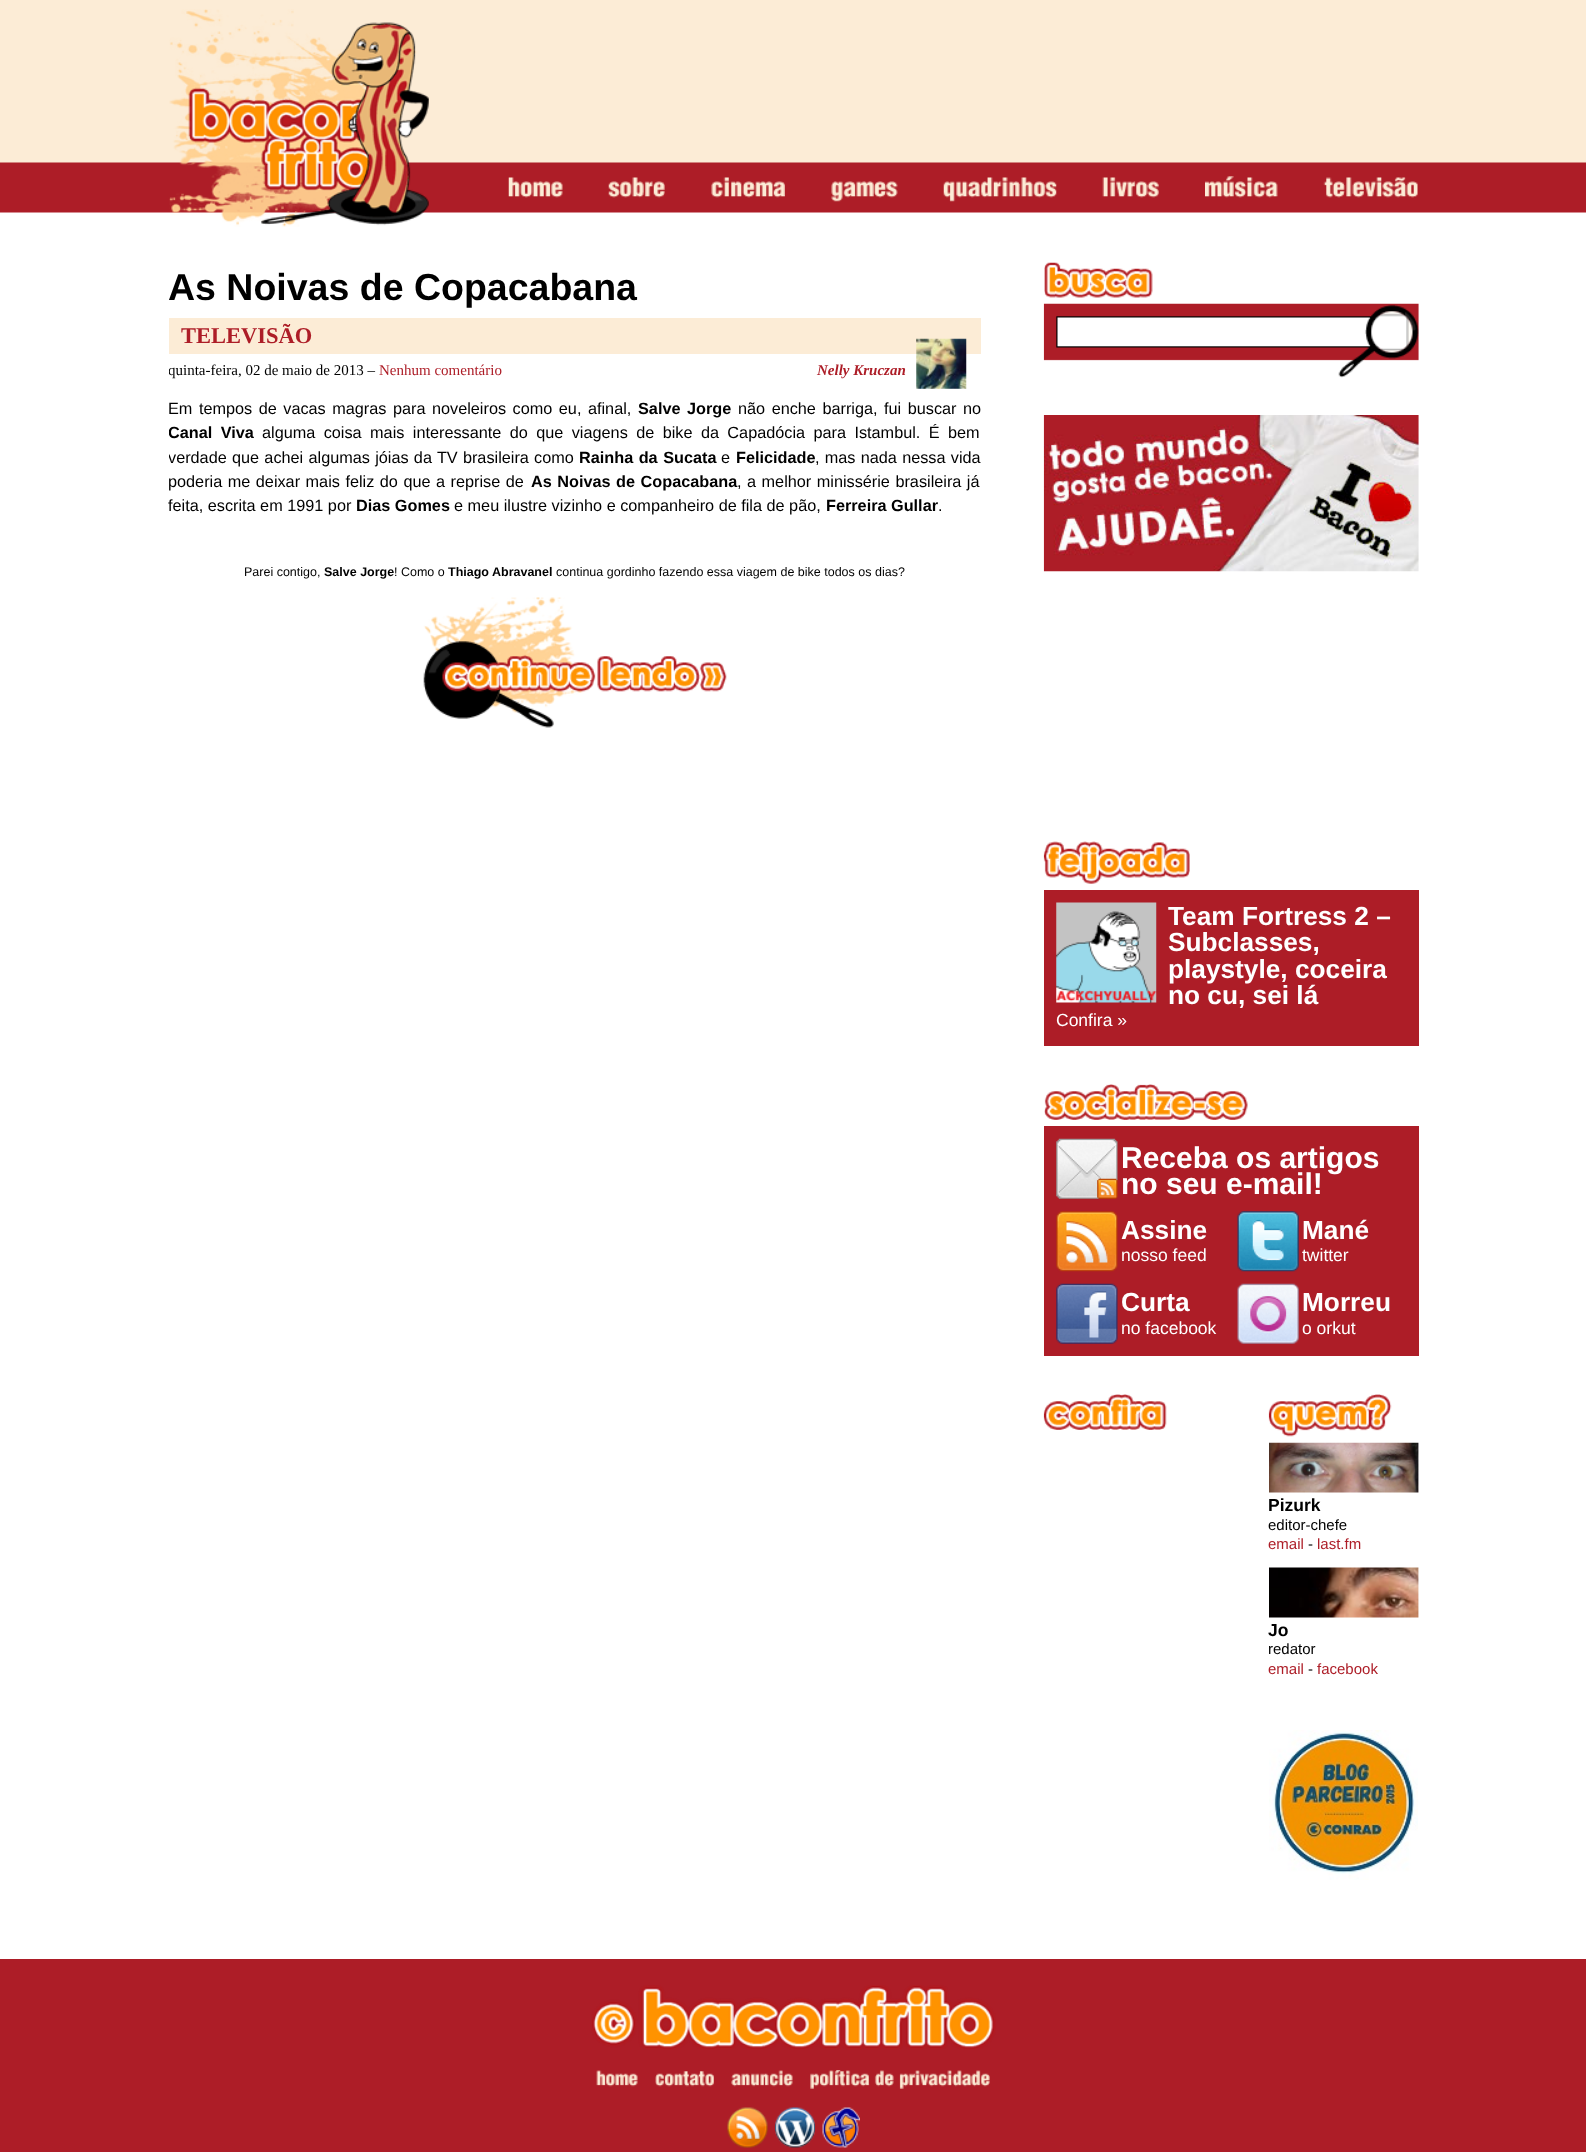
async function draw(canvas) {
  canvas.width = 1586;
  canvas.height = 2152;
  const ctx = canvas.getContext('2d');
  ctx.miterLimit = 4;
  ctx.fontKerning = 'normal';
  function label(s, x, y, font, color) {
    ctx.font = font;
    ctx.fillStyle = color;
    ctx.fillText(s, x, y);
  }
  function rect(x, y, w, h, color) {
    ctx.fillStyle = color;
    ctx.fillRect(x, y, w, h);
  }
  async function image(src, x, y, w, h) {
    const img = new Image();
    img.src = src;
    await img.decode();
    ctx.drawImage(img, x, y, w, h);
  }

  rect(0, 0, 1586, 2152, '#fff');
  await image('assets/img1.png', 0, 0, 1586, 213);
  await image('assets/img2.png', 169, 9, 260, 218);
  await image('assets/img3.png', 508, 177, 55, 21);
  await image('assets/img4.png', 608, 177, 57, 21);
  await image('assets/img5.png', 711, 177, 74, 21);
  await image('assets/img6.png', 831, 181, 67, 21);
  await image('assets/img7.png', 943, 177, 114, 25);
  await image('assets/img8.png', 1102, 177, 57, 21);
  await image('assets/img9.png', 1205, 176, 73, 22);
  await image('assets/img10.png', 1323, 177, 95, 21);
  label('As Noivas de Copacabana', 168, 300, 'bold 37.5px Liberation Sans', '#000');
  rect(169, 318, 812, 36, '#fcecd6');
  label('TELEVISÃO', 181, 343, 'bold 22.5px Liberation Serif', '#ad1d27');
  ctx.save();
  ctx.beginPath();
  ctx.rect(169, 263, 812, 483);
  ctx.clip();
  label('quinta-feira, 02 de maio de 2013 –', 168, 375, '15px Liberation Serif', '#000');
  ctx.restore();
  label('Nenhum comentário', 379, 375, '15px Liberation Serif', '#ad1d27');
  label('Nelly Kruczan', 817, 375, 'italic bold 15px Liberation Serif', '#ad1d27');
  await image('assets/img11.png', 916, 338, 51, 51);
  ctx.wordSpacing = '2px';
  label('Em tempos de vacas magras para noveleiros como eu, afinal,', 168, 414, '16.25px Liberation Sans', '#000');
  label('Salve Jorge', 638, 414, 'bold 16.25px Liberation Sans', '#000');
  label('não enche barriga, fui buscar no', 738, 414, '16.25px Liberation Sans', '#000');
  ctx.save();
  ctx.beginPath();
  ctx.rect(169, 263, 812, 483);
  ctx.clip();
  ctx.wordSpacing = '3.9px';
  label('Canal Viva', 168, 438, 'bold 16.25px Liberation Sans', '#000');
  ctx.restore();
  ctx.wordSpacing = '3.9px';
  label('alguma coisa mais interessante do que viagens de bike da Capadócia para Istambul. É bem', 262, 438, '16.25px Liberation Sans', '#000');
  ctx.save();
  ctx.beginPath();
  ctx.rect(169, 263, 812, 483);
  ctx.clip();
  ctx.wordSpacing = '0.75px';
  label('verdade que achei algumas jóias da TV brasileira como', 168, 463, '16.25px Liberation Sans', '#000');
  ctx.restore();
  ctx.wordSpacing = '1px';
  label('Rainha da Sucata', 579, 463, 'bold 16.25px Liberation Sans', '#000');
  ctx.wordSpacing = '0px';
  label('e', 721, 463, '16.25px Liberation Sans', '#000');
  label('Felicidade', 736, 463, 'bold 16.25px Liberation Sans', '#000');
  ctx.wordSpacing = '0.75px';
  label(', mas nada nessa vida', 815, 463, '16.25px Liberation Sans', '#000');
  ctx.wordSpacing = '1px';
  label('poderia me deixar mais feliz do que a reprise de', 168, 487, '16.25px Liberation Sans', '#000');
  label('As Noivas de Copacabana', 531, 487, 'bold 16.25px Liberation Sans', '#000');
  label(', a melhor minissérie brasileira já', 737, 487, '16.25px Liberation Sans', '#000');
  ctx.wordSpacing = '0px';
  label('feita, escrita em 1991 por', 168, 511, '16.25px Liberation Sans', '#000');
  label('Dias Gomes', 356, 511, 'bold 16.25px Liberation Sans', '#000');
  label('e meu ilustre vizinho e companheiro de fila de pão,', 454, 511, '16.25px Liberation Sans', '#000');
  label('Ferreira Gullar', 826, 511, 'bold 16.25px Liberation Sans', '#000');
  label('.', 938, 511, '16.25px Liberation Sans', '#000');
  label('Parei contigo,', 244, 576, '12.5px Liberation Sans', '#000');
  label('Salve Jorge', 324, 576, 'bold 12.5px Liberation Sans', '#000');
  label('! Como o', 394, 576, '12.5px Liberation Sans', '#000');
  label('Thiago Abravanel', 448, 576, 'bold 12.5px Liberation Sans', '#000');
  label('continua gordinho fazendo essa viagem de bike todos os dias?', 556, 576, '12.5px Liberation Sans', '#000');
  await image('assets/img12.png', 423, 597, 304, 131);
  await image('assets/img13.png', 1044, 262, 109, 36);
  await image('assets/img14.png', 1043, 303, 376, 75);
  await image('assets/img15.png', 1043, 415, 376, 157);
  await image('assets/img16.png', 1043, 841, 147, 43);
  rect(1044, 890, 375, 156, '#ad1d27');
  await image('assets/img17.png', 1056, 902, 101, 101);
  label('Team Fortress 2 –', 1168, 925, 'bold 26.25px Liberation Sans', '#fff');
  label('Subclasses,', 1168, 951, 'bold 26.25px Liberation Sans', '#fff');
  label('playstyle, coceira', 1168, 978, 'bold 26.25px Liberation Sans', '#fff');
  label('no cu, sei lá', 1168, 1004, 'bold 26.25px Liberation Sans', '#fff');
  label('Confira »', 1056, 1026, '17.5px Liberation Sans', '#fff');
  await image('assets/img18.png', 1044, 1084, 204, 36);
  rect(1044, 1126, 375, 230, '#ad1d27');
  await image('assets/img19.png', 1056, 1138, 62, 61);
  label('Receba os artigos', 1121, 1168, 'bold 30px Liberation Sans', '#fff');
  label('no seu e-mail!', 1121, 1194, 'bold 30px Liberation Sans', '#fff');
  await image('assets/img20.png', 1056, 1211, 62, 61);
  label('Assine', 1121, 1239, 'bold 26.25px Liberation Sans', '#fff');
  label('nosso feed', 1121, 1261, '17.5px Liberation Sans', '#fff');
  await image('assets/img21.png', 1237, 1211, 62, 61);
  label('Mané', 1302, 1239, 'bold 26.25px Liberation Sans', '#fff');
  label('twitter', 1302, 1261, '17.5px Liberation Sans', '#fff');
  await image('assets/img22.png', 1056, 1283, 62, 61);
  label('Curta', 1121, 1311, 'bold 26.25px Liberation Sans', '#fff');
  label('no facebook', 1121, 1334, '17.5px Liberation Sans', '#fff');
  await image('assets/img23.png', 1237, 1283, 62, 61);
  label('Morreu', 1302, 1311, 'bold 26.25px Liberation Sans', '#fff');
  label('o orkut', 1302, 1334, '17.5px Liberation Sans', '#fff');
  await image('assets/img24.png', 1043, 1394, 124, 36);
  await image('assets/img25.png', 1268, 1394, 124, 43);
  await image('assets/img26.png', 1269, 1442, 150, 51);
  label('Pizurk', 1268, 1511, 'bold 17.5px Liberation Sans', '#000');
  label('editor-chefe', 1268, 1530, '15px Liberation Sans', '#000');
  label('email', 1268, 1549, '15px Liberation Sans', '#ad1d27');
  label('-', 1308, 1549, '15px Liberation Sans', '#000');
  label('last.fm', 1317, 1549, '15px Liberation Sans', '#ad1d27');
  await image('assets/img27.png', 1269, 1567, 150, 51);
  label('Jo', 1268, 1636, 'bold 17.5px Liberation Sans', '#000');
  label('redator', 1268, 1654, '15px Liberation Sans', '#000');
  label('email', 1268, 1674, '15px Liberation Sans', '#ad1d27');
  label('-', 1308, 1674, '15px Liberation Sans', '#000');
  label('facebook', 1317, 1674, '15px Liberation Sans', '#ad1d27');
  await image('assets/img28.png', 1269, 1730, 149, 150);
  rect(0, 1959, 1586, 193, '#ad1d27');
  await image('assets/img29.png', 591, 1985, 405, 65);
  await image('assets/img30.png', 596, 2070, 42, 17);
  await image('assets/img31.png', 655, 2071, 59, 16);
  await image('assets/img32.png', 731, 2070, 62, 17);
  await image('assets/img33.png', 810, 2070, 180, 19);
  await image('assets/img34.png', 727, 2107, 41, 41);
  await image('assets/img35.png', 775, 2107, 40, 41);
  await image('assets/img36.png', 822, 2107, 38, 41);
}

draw(document.querySelector('canvas'));
